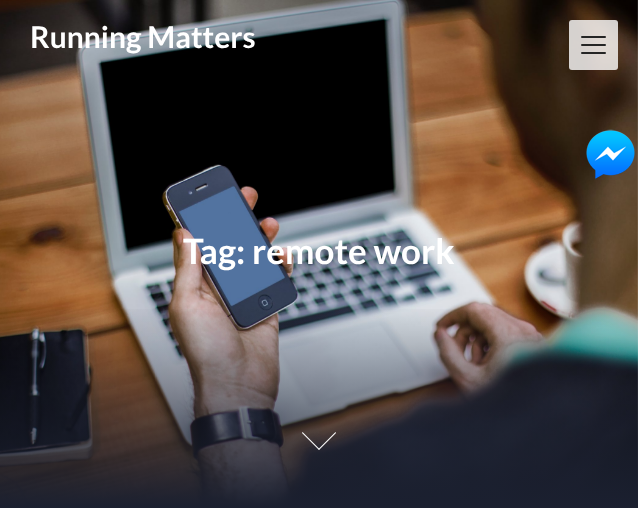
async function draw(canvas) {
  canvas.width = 638;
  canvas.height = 508;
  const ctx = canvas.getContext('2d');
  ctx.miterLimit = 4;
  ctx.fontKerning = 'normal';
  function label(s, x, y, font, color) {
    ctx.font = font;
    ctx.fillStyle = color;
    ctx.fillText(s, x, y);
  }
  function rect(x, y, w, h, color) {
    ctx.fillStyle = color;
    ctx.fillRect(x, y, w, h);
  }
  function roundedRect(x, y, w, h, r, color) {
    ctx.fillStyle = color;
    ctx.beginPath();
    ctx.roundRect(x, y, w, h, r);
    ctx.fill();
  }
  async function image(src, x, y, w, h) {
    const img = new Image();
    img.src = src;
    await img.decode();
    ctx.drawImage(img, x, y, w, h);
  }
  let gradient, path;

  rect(0, 0, 638, 508, '#fff');
  await image('assets/img1.png', 0, 0, 638, 507);
  label('Running Matters', 30, 48, 'bold 30px Lato', '#fff');
  roundedRect(569, 20, 49, 50, 3, '#ffffffcc');
  roundedRect(581, 44, 25, 2, 1, '#252525');
  roundedRect(581, 36, 25, 2, 1, '#252525');
  roundedRect(581, 52, 25, 2, 1, '#252525');
  label('Tag: remote work', 183, 264, 'bold 35px Lato', '#fff');
  gradient = ctx.createLinearGradient(319, 305, 319, 508);
  gradient.addColorStop(0, '#1b203000');
  gradient.addColorStop(1, '#1b2030');
  ctx.fillStyle = gradient;
  ctx.fillRect(0, 309, 638, 199);
  ctx.fillStyle = '#fff';
  path = new Path2D('M318.5 449L335.5 432L336 433L319 450Z');
  ctx.fill(path);
  path = new Path2D('M302 433L302.5 432L319.5 449L319 450Z');
  ctx.fill(path);
  await image('assets/img2.png', 586, 129, 49, 51);
}

draw(document.querySelector('canvas'));
